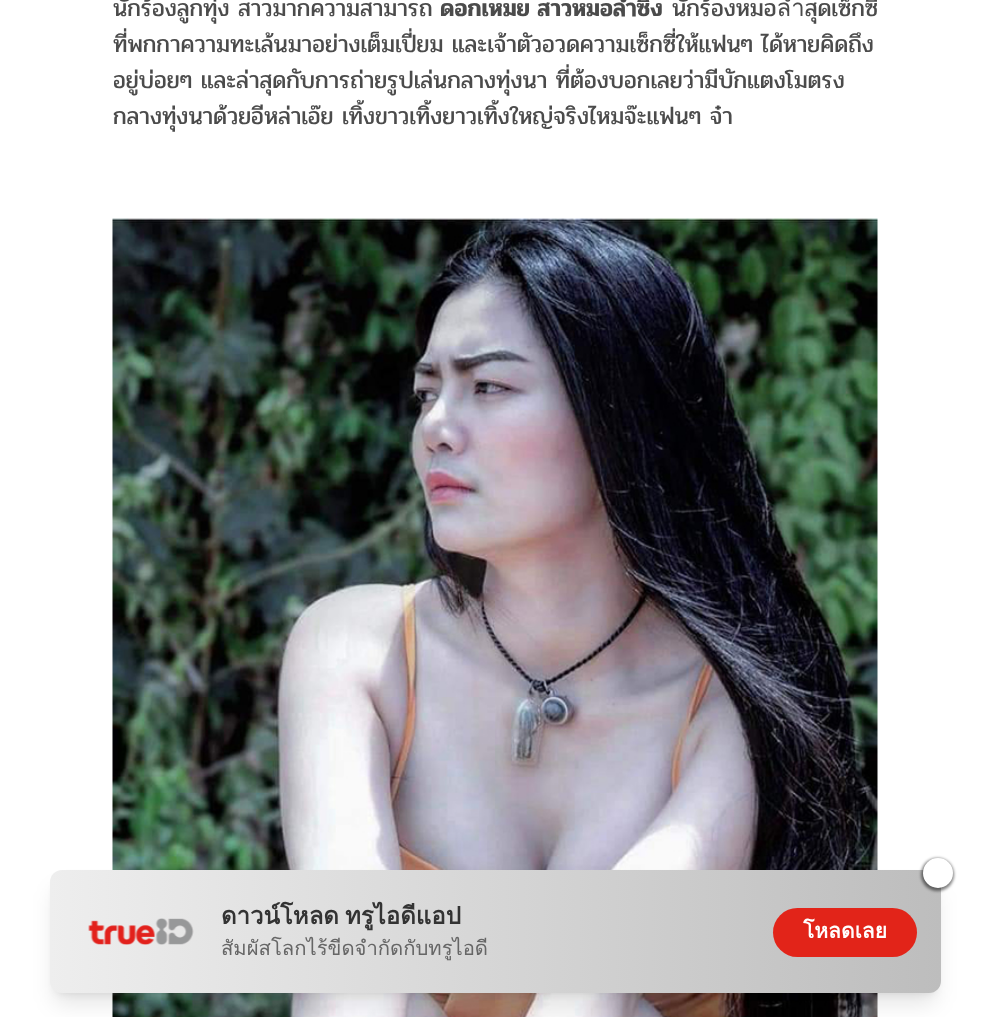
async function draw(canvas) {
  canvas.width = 989;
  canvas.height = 1017;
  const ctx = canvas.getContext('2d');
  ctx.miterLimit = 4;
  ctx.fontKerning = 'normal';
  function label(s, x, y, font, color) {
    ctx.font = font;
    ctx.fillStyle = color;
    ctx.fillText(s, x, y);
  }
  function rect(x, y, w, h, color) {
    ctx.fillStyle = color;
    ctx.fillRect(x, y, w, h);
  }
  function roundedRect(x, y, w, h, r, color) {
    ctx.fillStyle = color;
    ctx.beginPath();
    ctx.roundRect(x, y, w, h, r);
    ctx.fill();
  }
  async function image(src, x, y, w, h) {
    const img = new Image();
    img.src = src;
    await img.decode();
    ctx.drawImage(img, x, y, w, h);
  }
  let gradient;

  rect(0, 0, 989, 1017, '#fff');
  label('นักร้องลูกทุ่ง สาวมากความสามารถ', 113, 16, '24px Pridi', '#4b4b4b');
  label('ดอกเหมย สาวหมอลำซิ่ง', 440, 16, '600 24px Pridi', '#4b4b4b');
  label('นักร้องหมอลำสุดเซ็กซี่', 672, 16, '24px Pridi', '#4b4b4b');
  label('ที่พกกาความทะเล้นมาอย่างเต็มเปี่ยม และเจ้าตัวอวดความเซ็กซี่ให้แฟนๆ ได้หายคิดถึง', 113, 52, '24px Pridi', '#4b4b4b');
  label('อยู่บ่อยๆ และล่าสุดกับการถ่ายรูปเล่นกลางทุ่งนา ที่ต้องบอกเลยว่ามีบักแตงโมตรง', 113, 88, '24px Pridi', '#4b4b4b');
  label('กลางทุ่งนาด้วยอีหล่าเอ๊ย เทิ้งขาวเทิ้งยาวเทิ้งใหญ่จริงไหมจ๊ะแฟนๆ จ๋า', 113, 124, '24px Pridi', '#4b4b4b');
  await image('assets/img1.png', 112, 218, 766, 799);
  ctx.fillStyle = '#0000001a';
  ctx.filter = 'blur(4.5px)';
  ctx.beginPath();
  ctx.roundRect(56, 882, 879, 111, 6);
  ctx.fill();
  ctx.filter = 'none';
  ctx.filter = 'blur(11px)';
  ctx.beginPath();
  ctx.roundRect(54, 890, 882, 114, 8);
  ctx.fill();
  ctx.filter = 'none';
  gradient = ctx.createLinearGradient(50, 932, 941, 932);
  gradient.addColorStop(0, '#eee');
  gradient.addColorStop(1, '#bdbdbd');
  ctx.fillStyle = gradient;
  ctx.beginPath();
  ctx.roundRect(50, 870, 891, 123, 12);
  ctx.fill();
  ctx.fillStyle = '#00000080';
  ctx.filter = 'blur(1.5px)';
  ctx.beginPath();
  ctx.roundRect(921, 858, 33, 33, 16.5);
  ctx.fill();
  ctx.filter = 'none';
  ctx.fillStyle = '#fff';
  ctx.beginPath();
  ctx.arc(938, 873, 15, 0, 2 * Math.PI);
  ctx.fill();
  await image('assets/img2.png', 88, 918, 106, 27);
  ctx.wordSpacing = '-2px';
  label('ดาวน์โหลด ทรูไอดีแอป', 221, 924, 'bold 24px Loma', '#333');
  ctx.wordSpacing = '0px';
  label('สัมผัสโลกไร้ขีดจำกัดกับทรูไอดี', 221, 955, '20.25px Loma', '#666');
  roundedRect(773, 908, 144, 49, 24.5, '#e22419');
  label('โหลดเลย', 803, 938, 'bold 21px Loma', '#fff');
}

draw(document.querySelector('canvas'));
